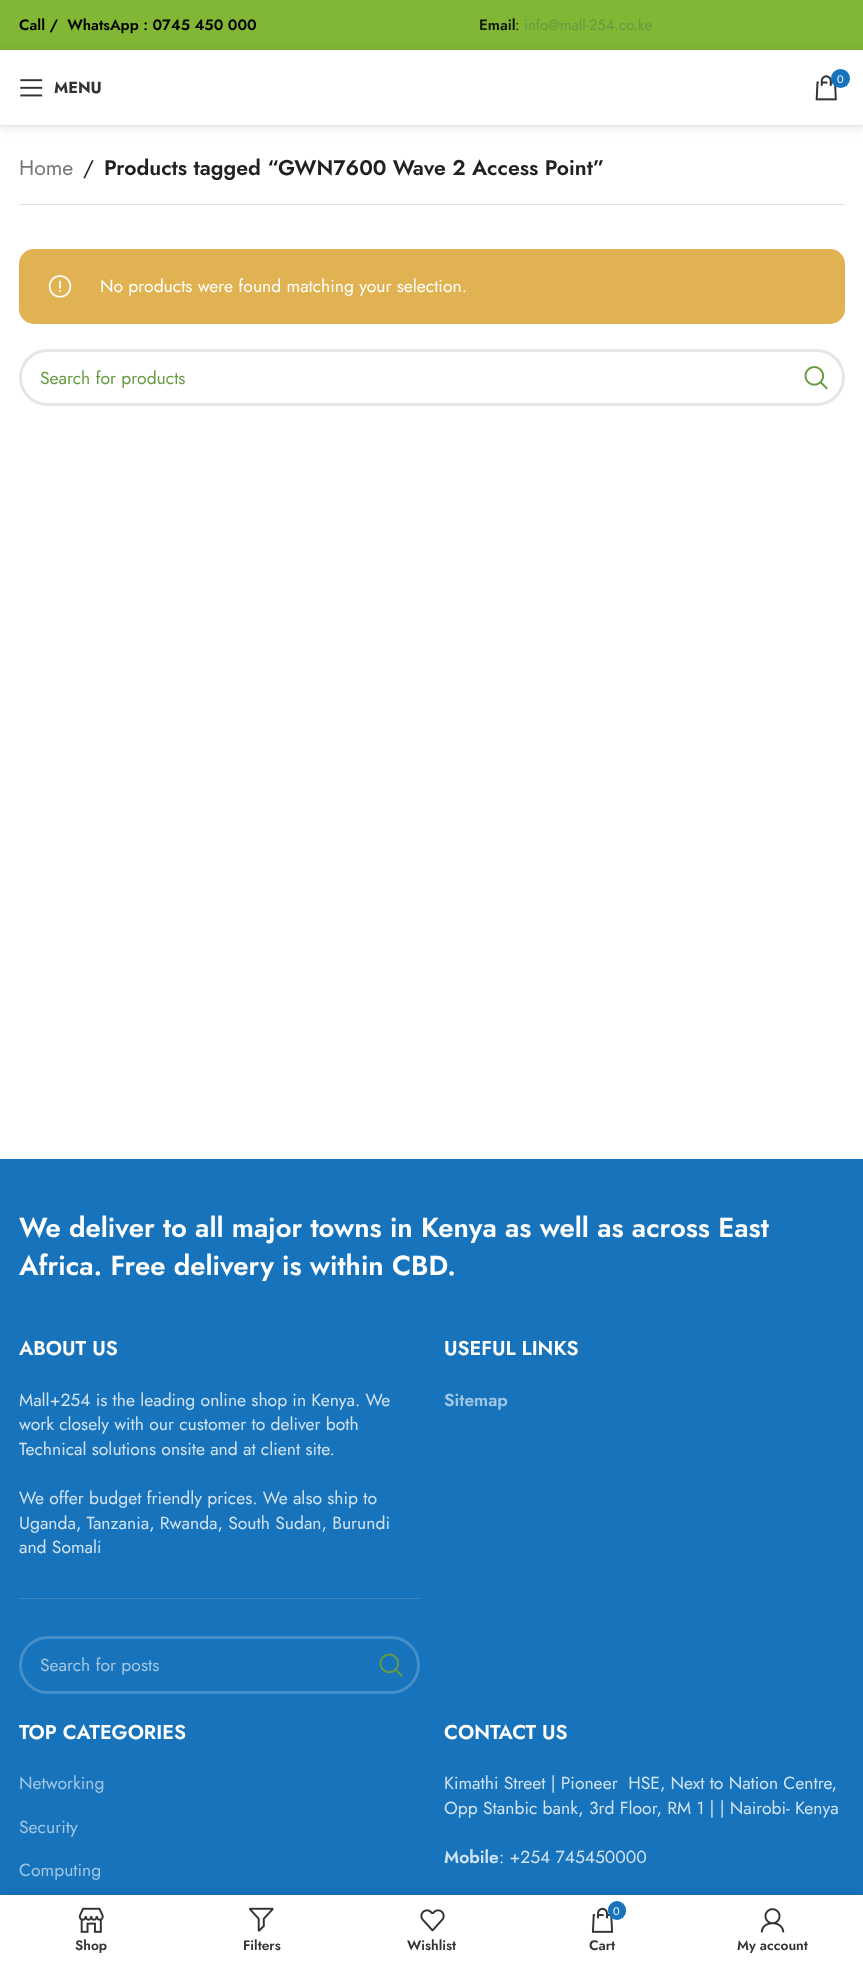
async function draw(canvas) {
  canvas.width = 863;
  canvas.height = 1963;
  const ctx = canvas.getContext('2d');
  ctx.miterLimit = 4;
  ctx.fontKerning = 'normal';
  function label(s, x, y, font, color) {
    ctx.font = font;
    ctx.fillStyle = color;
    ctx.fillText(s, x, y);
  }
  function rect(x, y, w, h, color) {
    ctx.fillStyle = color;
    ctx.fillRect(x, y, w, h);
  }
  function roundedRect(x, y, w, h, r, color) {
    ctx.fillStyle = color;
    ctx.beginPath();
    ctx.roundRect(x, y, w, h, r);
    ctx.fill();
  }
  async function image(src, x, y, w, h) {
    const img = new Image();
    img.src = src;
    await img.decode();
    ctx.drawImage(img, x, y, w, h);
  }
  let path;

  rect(0, 0, 863, 1963, '#fff');
  rect(0, 0, 863, 50, '#82b735');
  label('Call /  WhatsApp : 0745 450 000', 19, 30, '600 15px Jost', '#000');
  label('Email', 479, 30, '600 15px Jost', '#111807');
  label(':', 515, 30, '15px Jost', '#111807');
  label('info@mall-254.co.ke', 524, 30, '15px Jost', '#669b41');
  ctx.save();
  path = new Path2D('M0 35H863V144H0ZM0 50H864V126H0Z');
  ctx.clip(path, 'evenodd');
  ctx.fillStyle = '#0000001a';
  ctx.filter = 'blur(5px)';
  ctx.beginPath();
  ctx.rect(0, 51, 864, 77);
  ctx.fill();
  ctx.filter = 'none';
  ctx.restore();
  rect(0, 125, 863, 1, '#e6e6e6');
  await image('assets/img1.png', 815, 75, 22, 26);
  ctx.fillStyle = '#1773bb';
  ctx.beginPath();
  ctx.arc(840.5, 78.5, 9.5, 0, 2 * Math.PI);
  ctx.fill();
  label('0', 837, 83, '11px Jost', '#fff');
  await image('assets/img2.png', 20, 79, 23, 18);
  label('MENU', 54, 93, 'bold 16px Jost', '#333');
  rect(19, 204, 826, 1, '#e4e4e4');
  label('Home', 19, 175, '21.25px Jost', '#767676');
  label('/', 83, 175, '21.25px Jost', '#212121');
  label('Products tagged “GWN7600 Wave 2 Access Point”', 104, 175, '600 21.25px Jost', '#212121');
  roundedRect(19, 249, 826, 75, 15, '#e0b252');
  await image('assets/img3.png', 48, 275, 24, 23);
  label('No products were found matching your selection.', 100, 292, '17.5px Jost', '#fff');
  ctx.beginPath();
  ctx.roundRect(20.5, 350.5, 823, 54, 27);
  ctx.strokeStyle = '#e6e6e6';
  ctx.lineWidth = 3;
  ctx.stroke();
  label('Search for products', 40, 384, '17.5px Jost', '#669b41');
  await image('assets/img4.png', 804, 366, 24, 24);
  rect(0, 1159, 863, 736, '#1773bb');
  label('We deliver to all major towns in Kenya as well as across East', 19, 1237, '600 27.5px Jost', '#fff');
  label('Africa. Free delivery is within CBD.', 19, 1275, '600 27.5px Jost', '#fff');
  rect(19, 1598, 401, 1, '#3a88c5');
  label('ABOUT US', 19, 1355, '600 20px Jost', '#fff');
  label('Mall+254 is the leading online shop in Kenya. We', 19, 1406, '17.5px Jost', '#d1e3f1');
  label('work closely with our customer to deliver both', 19, 1430, '17.5px Jost', '#d1e3f1');
  label('Technical solutions onsite and at client site.', 19, 1455, '17.5px Jost', '#d1e3f1');
  label('We offer budget friendly prices. We also ship to', 19, 1504, '17.5px Jost', '#d1e3f1');
  label('Uganda, Tanzania, Rwanda, South Sudan, Burundi', 19, 1529, '17.5px Jost', '#d1e3f1');
  label('and Somali', 19, 1553, '17.5px Jost', '#d1e3f1');
  ctx.beginPath();
  ctx.roundRect(20.5, 1637.5, 398, 55, 27.5);
  ctx.strokeStyle = '#458fc9';
  ctx.stroke();
  label('Search for posts', 40, 1671, '17.5px Jost', '#a2c7e4');
  await image('assets/img5.png', 379, 1653, 24, 24);
  label('USEFUL LINKS', 444, 1355, '600 20px Jost', '#fff');
  label('Sitemap', 444, 1406, '600 17.5px Jost', '#a2c7e4');
  label('TOP CATEGORIES', 19, 1739, '600 20px Jost', '#fff');
  label('Networking', 19, 1789, '17.5px Jost', '#a2c7e4');
  label('Security', 19, 1833, '17.5px Jost', '#a2c7e4');
  label('Computing', 19, 1876, '17.5px Jost', '#a2c7e4');
  label('CONTACT US', 444, 1739, '600 20px Jost', '#fff');
  label('Kimathi Street | Pioneer  HSE, Next to Nation Centre,', 444, 1789, '17.5px Jost', '#d1e3f1');
  label('Opp Stanbic bank, 3rd Floor, RM 1 | | Nairobi- Kenya', 444, 1814, '17.5px Jost', '#d1e3f1');
  label('Mobile', 444, 1863, '600 17.5px Jost', '#d1e3f1');
  label(': +254 745450000', 499, 1863, '17.5px Jost', '#d1e3f1');
  ctx.fillStyle = '#0000001f';
  ctx.filter = 'blur(5.5px)';
  ctx.beginPath();
  ctx.rect(0, 1895, 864, 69);
  ctx.fill();
  ctx.filter = 'none';
  rect(0, 1895, 863, 68, '#fff');
  await image('assets/img6.png', 78, 1907, 26, 26);
  label('Shop', 75, 1950, '600 13.75px Jost', '#333');
  await image('assets/img7.png', 248, 1907, 26, 25);
  label('Filters', 243, 1950, '600 13.75px Jost', '#333');
  await image('assets/img8.png', 420, 1909, 25, 23);
  label('Wishlist', 407, 1950, '600 13.75px Jost', '#333');
  await image('assets/img9.png', 591, 1907, 23, 26);
  roundedRect(608, 1901, 18, 19, 9, '#1773bb');
  label('0', 613, 1915, '11px Jost', '#fff');
  label('Cart', 589, 1950, '600 13.75px Jost', '#333');
  await image('assets/img10.png', 760, 1908, 25, 25);
  label('My account', 737, 1950, '600 13.75px Jost', '#333');
}

draw(document.querySelector('canvas'));
